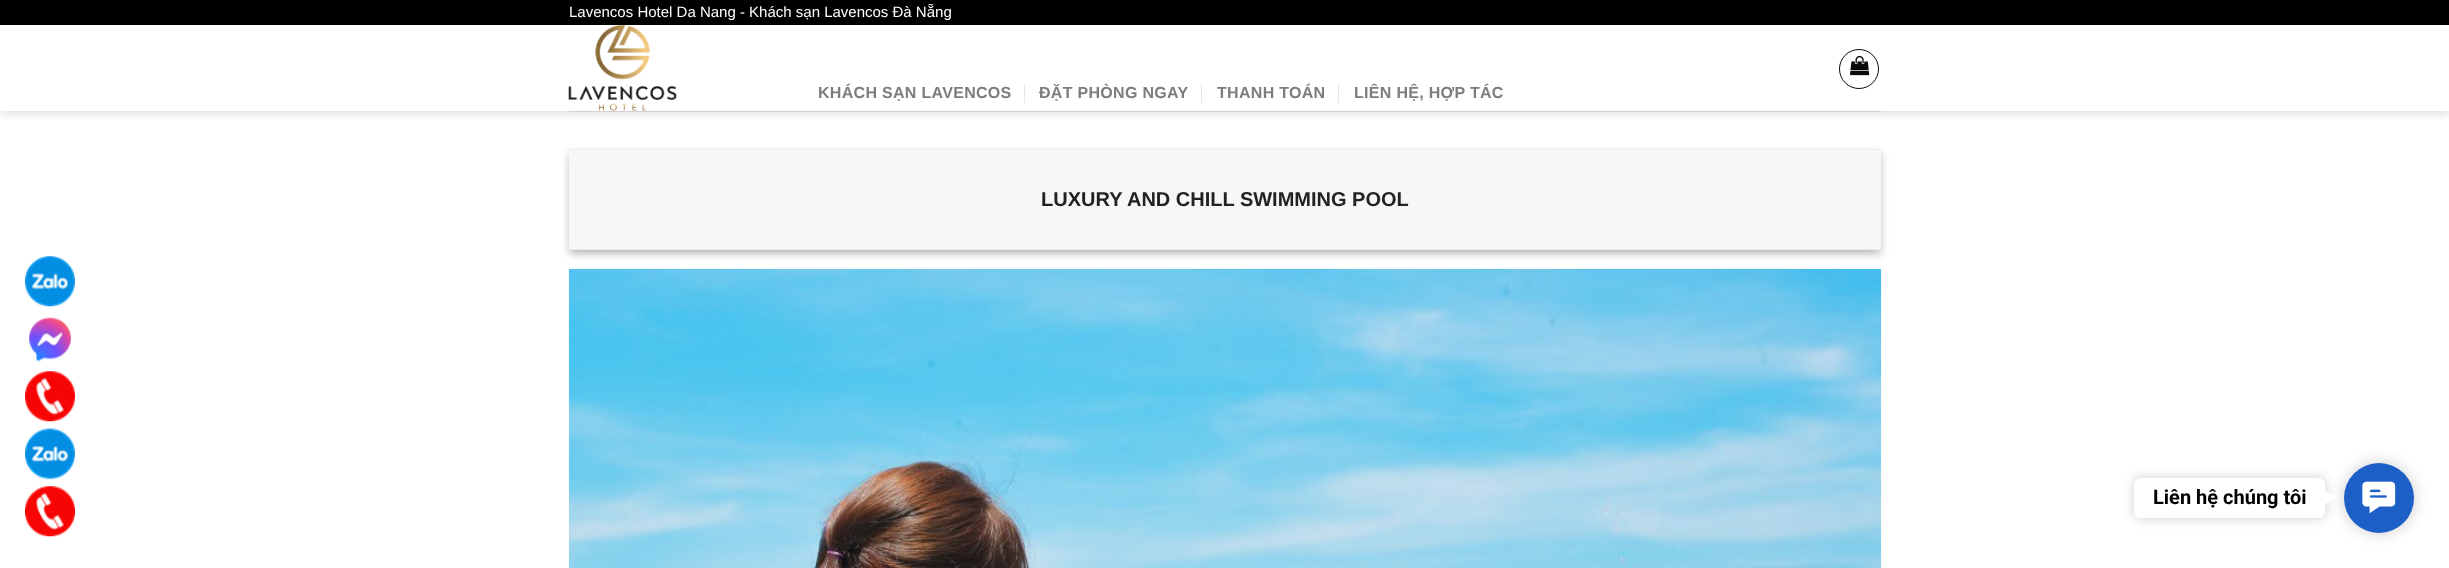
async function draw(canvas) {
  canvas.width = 2449;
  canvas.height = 568;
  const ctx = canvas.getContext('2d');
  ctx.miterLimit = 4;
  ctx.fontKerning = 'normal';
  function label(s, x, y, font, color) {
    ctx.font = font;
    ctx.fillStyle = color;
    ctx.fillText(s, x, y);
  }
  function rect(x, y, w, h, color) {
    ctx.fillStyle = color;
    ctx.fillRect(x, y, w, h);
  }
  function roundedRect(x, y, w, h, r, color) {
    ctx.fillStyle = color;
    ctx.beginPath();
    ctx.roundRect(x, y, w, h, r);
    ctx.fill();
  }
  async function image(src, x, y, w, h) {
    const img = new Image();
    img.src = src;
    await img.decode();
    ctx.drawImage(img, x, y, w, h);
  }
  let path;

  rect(0, 0, 2449, 568, '#fff');
  ctx.save();
  ctx.beginPath();
  ctx.rect(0, 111, 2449, 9);
  ctx.clip();
  ctx.fillStyle = '#00000026';
  ctx.filter = 'blur(6px)';
  ctx.beginPath();
  ctx.rect(1, 1, 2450, 112);
  ctx.fill();
  ctx.filter = 'none';
  ctx.restore();
  rect(0, 0, 2449, 25, '#000');
  label('Lavencos Hotel Da Nang - Khách sạn Lavencos Đà Nẵng', 569, 17, '15px Liberation Sans', '#fff');
  await image('assets/img1.png', 568, 25, 109, 87);
  ctx.beginPath();
  ctx.arc(1859, 69, 19.5, 0, 2 * Math.PI);
  ctx.strokeStyle = '#0a0a0a';
  ctx.stroke();
  await image('assets/img2.png', 1850, 55, 20, 21);
  ctx.letterSpacing = '0.3px';
  label('KHÁCH SẠN LAVENCOS', 818, 98, 'bold 16px Liberation Sans', '#7d7d7d');
  rect(1024, 84, 1, 19, '#e6e6e6');
  label('ĐẶT PHÒNG NGAY', 1039, 98, 'bold 16px Liberation Sans', '#7d7d7d');
  rect(1201, 84, 1, 19, '#e6e6e6');
  label('THANH TOÁN', 1217, 98, 'bold 16px Liberation Sans', '#7d7d7d');
  rect(1338, 84, 1, 19, '#e6e6e6');
  label('LIÊN HỆ, HỢP TÁC', 1354, 98, 'bold 16px Liberation Sans', '#7d7d7d');
  rect(569, 111, 1312, 1, '#0a09091a');
  ctx.fillStyle = '#0000003b';
  ctx.filter = 'blur(4px)';
  ctx.beginPath();
  ctx.rect(569, 153, 1312, 101);
  ctx.fill();
  ctx.filter = 'none';
  ctx.fillStyle = '#00000029';
  ctx.filter = 'blur(4px)';
  ctx.beginPath();
  ctx.rect(574, 158, 1302, 91);
  ctx.fill();
  ctx.filter = 'none';
  rect(569, 150, 1312, 99, '#f7f7f7');
  rect(569, 149, 1312, 1, '#ececec');
  rect(569, 249, 1312, 1, '#ececec');
  ctx.letterSpacing = '0px';
  label('LUXURY AND CHILL SWIMMING POOL', 1041, 206, 'bold 20px Liberation Sans', '#222');
  await image('assets/img3.png', 568, 268, 1314, 300);
  await image('assets/img4.png', 25, 256, 50, 51);
  await image('assets/img5.png', 29, 317, 42, 45);
  await image('assets/img6.png', 25, 371, 50, 51);
  await image('assets/img7.png', 25, 428, 50, 52);
  await image('assets/img8.png', 25, 486, 50, 51);
  ctx.fillStyle = '#00000033';
  ctx.filter = 'blur(6px)';
  ctx.beginPath();
  ctx.roundRect(2134, 478, 191, 40, 6);
  ctx.fill();
  ctx.filter = 'none';
  ctx.filter = 'blur(7.5px)';
  ctx.beginPath();
  ctx.roundRect(2344, 463, 70, 70, 35);
  ctx.fill();
  ctx.filter = 'none';
  roundedRect(2134, 478, 191, 40, 6, '#fff');
  label('Liên hệ chúng tôi', 2153, 504, 'bold 20px Roboto', '#000');
  ctx.fillStyle = '#fff';
  path = new Path2D('M2325 504V491L2339 497.5Z');
  ctx.fill(path);
  ctx.fillStyle = '#1c5fc6';
  ctx.beginPath();
  ctx.arc(2379, 498, 35, 0, 2 * Math.PI);
  ctx.fill();
  await image('assets/img9.png', 2362, 481, 34, 33);
}

draw(document.querySelector('canvas'));
